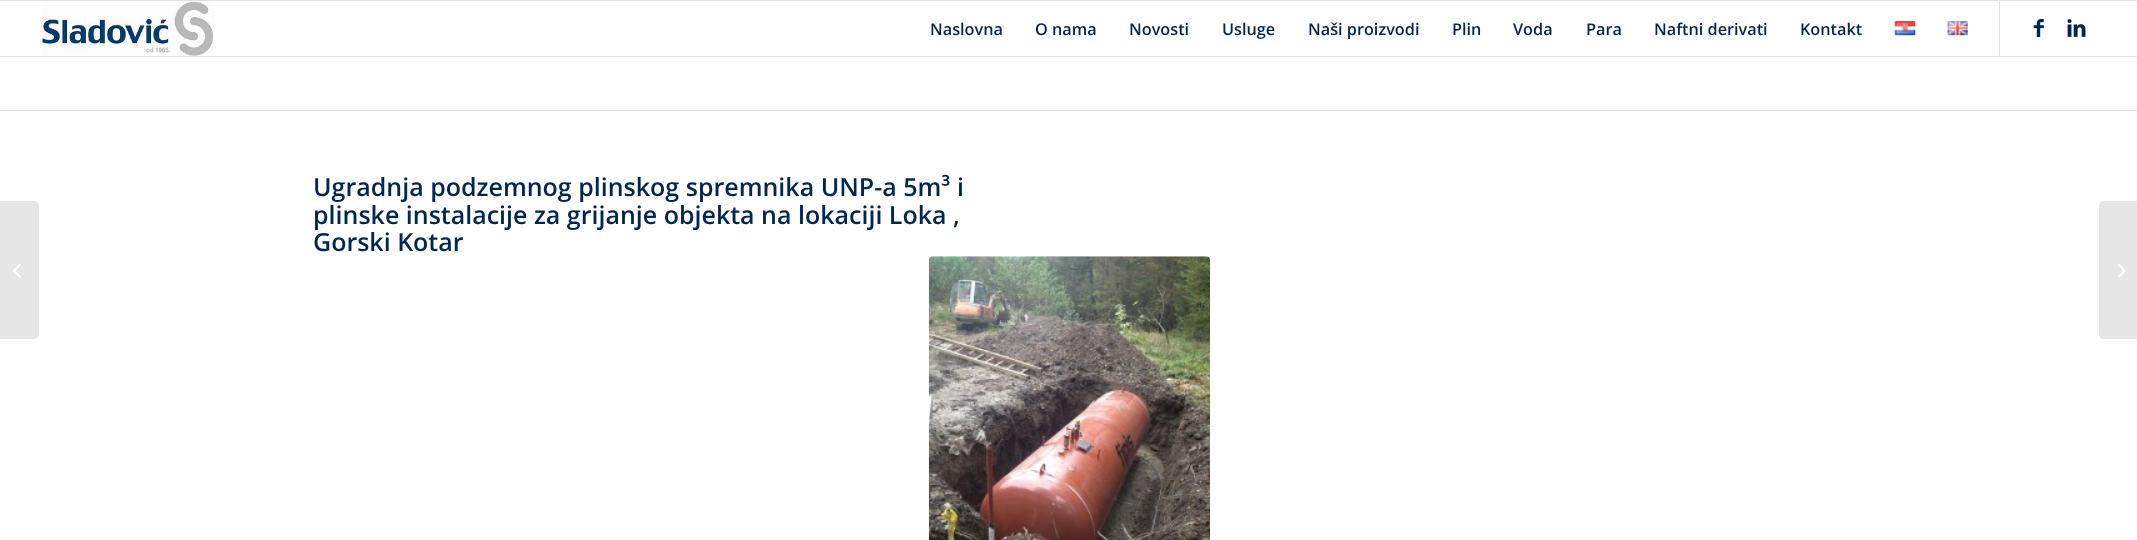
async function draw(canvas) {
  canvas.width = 2137;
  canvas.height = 540;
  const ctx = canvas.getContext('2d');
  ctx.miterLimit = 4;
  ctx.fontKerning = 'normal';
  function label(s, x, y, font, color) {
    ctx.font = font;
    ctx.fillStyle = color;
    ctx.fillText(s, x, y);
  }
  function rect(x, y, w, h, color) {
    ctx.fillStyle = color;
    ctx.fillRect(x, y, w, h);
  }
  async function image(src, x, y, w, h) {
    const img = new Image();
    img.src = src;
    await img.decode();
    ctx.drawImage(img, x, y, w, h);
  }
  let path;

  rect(0, 0, 2137, 540, '#fff');
  rect(0, 0, 2137, 1, '#e1e1e1');
  rect(0, 56, 2137, 1, '#e1e1e1');
  await image('assets/img1.png', 42, 1, 172, 55);
  rect(1999, 1, 1, 55, '#e1e1e1');
  label('Naslovna', 930, 35, '600 16.25px Open Sans', '#002754');
  label('O nama', 1035, 35, '600 16.25px Open Sans', '#002754');
  label('Novosti', 1129, 35, '600 16.25px Open Sans', '#002754');
  label('Usluge', 1222, 35, '600 16.25px Open Sans', '#002754');
  label('Naši proizvodi', 1308, 35, '600 16.25px Open Sans', '#002754');
  label('Plin', 1452, 35, '600 16.25px Open Sans', '#002754');
  label('Voda', 1513, 35, '600 16.25px Open Sans', '#002754');
  label('Para', 1586, 35, '600 16.25px Open Sans', '#002754');
  label('Naftni derivati', 1654, 35, '600 16.25px Open Sans', '#002754');
  label('Kontakt', 1800, 35, '600 16.25px Open Sans', '#002754');
  await image('assets/img2.png', 1894, 21, 22, 15);
  await image('assets/img3.png', 1946, 21, 22, 15);
  await image('assets/img4.png', 2033, 19, 11, 18);
  await image('assets/img5.png', 2067, 19, 19, 18);
  ctx.fillStyle = '#e6e6e6';
  ctx.beginPath();
  ctx.roundRect(0, 201, 39, 138, [0, 5, 5, 0]);
  ctx.fill();
  await image('assets/img6.png', 13, 264, 8, 14);
  rect(0, 110, 2137, 1, '#e1e1e1');
  label('Ugradnja podzemnog plinskog spremnika UNP-a 5m³ i', 313, 196, '600 25px Open Sans', '#002754');
  label('plinske instalacije za grijanje objekta na lokaciji Loka ,', 313, 224, '600 25px Open Sans', '#002754');
  label('Gorski Kotar', 313, 251, '600 25px Open Sans', '#002754');
  await image('assets/img7.png', 928, 256, 282, 284);
  ctx.fillStyle = '#e6e6e6';
  path = new Path2D('M2104 201H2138V339H2104C2101 339 2099 337 2099 334V206C2099 203 2101 201 2104 201Z');
  ctx.fill(path);
  await image('assets/img8.png', 2118, 264, 8, 14);
}

draw(document.querySelector('canvas'));
